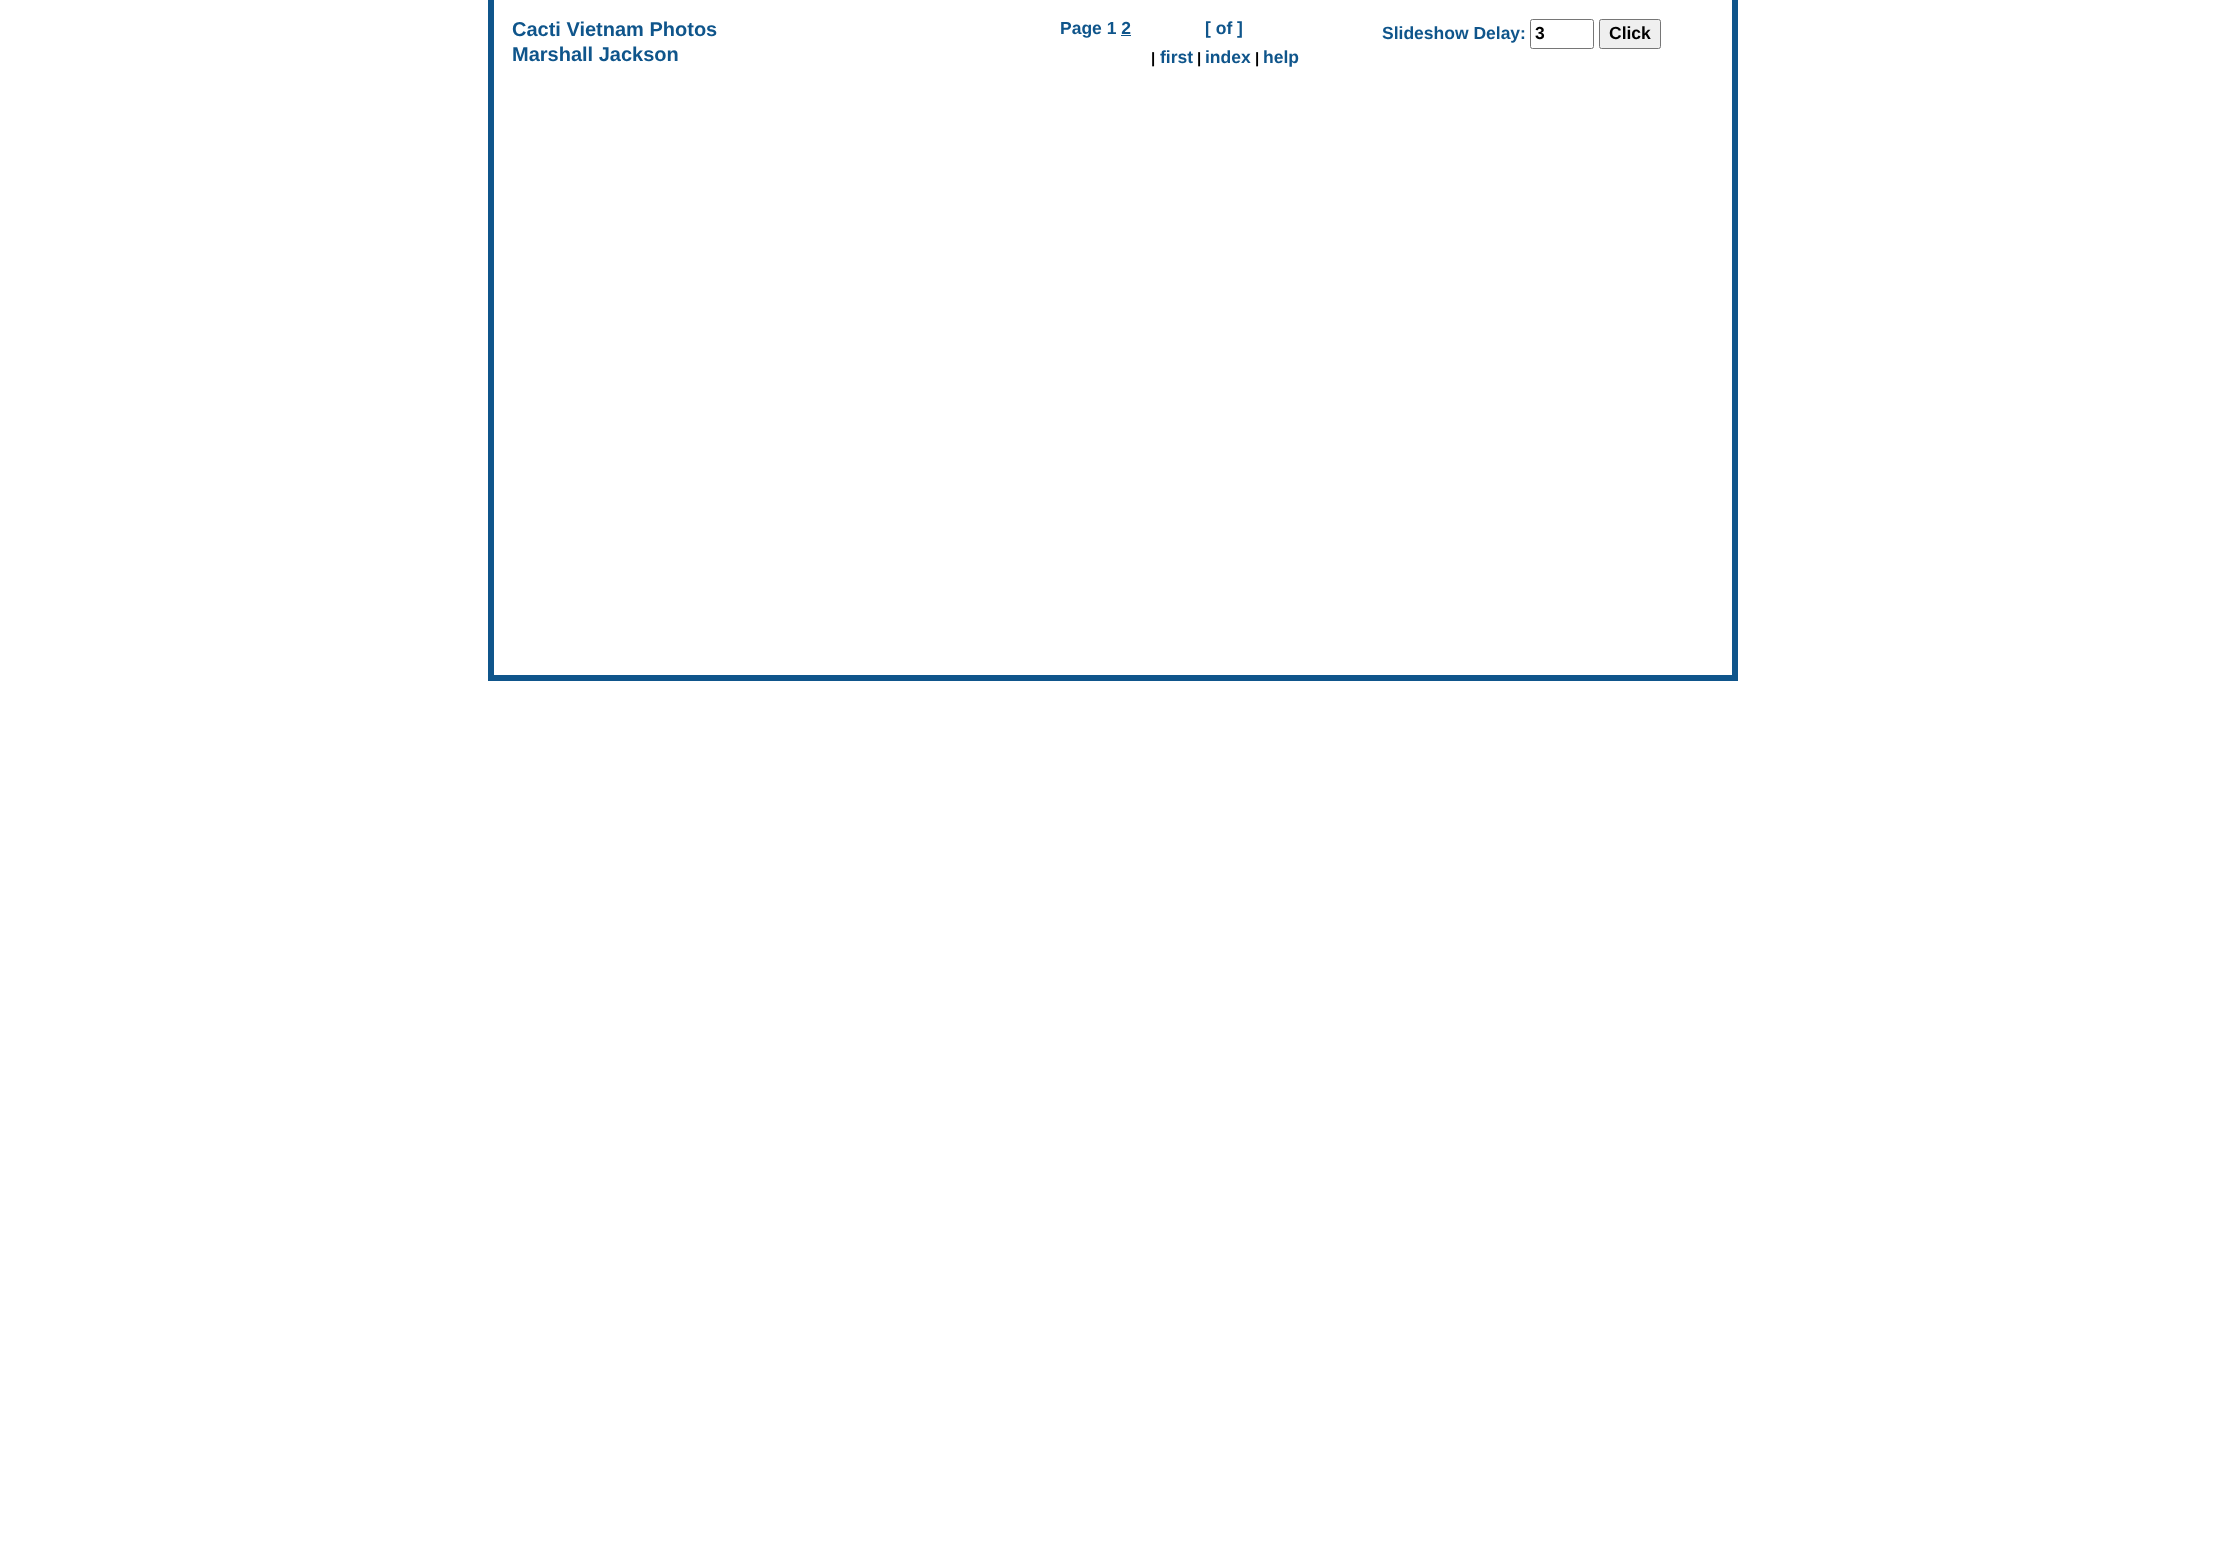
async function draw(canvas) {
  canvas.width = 2223;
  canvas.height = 1549;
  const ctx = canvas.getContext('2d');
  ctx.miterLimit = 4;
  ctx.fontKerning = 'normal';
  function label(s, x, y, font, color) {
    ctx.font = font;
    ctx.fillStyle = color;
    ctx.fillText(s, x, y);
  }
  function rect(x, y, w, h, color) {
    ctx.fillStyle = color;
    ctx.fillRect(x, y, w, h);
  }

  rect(0, 0, 2223, 1549, '#fff');
  ctx.strokeStyle = '#0f558b';
  ctx.lineWidth = 6;
  ctx.strokeRect(491, -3, 1244, 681);
  label('Cacti Vietnam Photos', 512, 36, 'bold 20px Liberation Sans', '#0f558b');
  label('Marshall Jackson', 512, 61, 'bold 20px Liberation Sans', '#0f558b');
  label('Page 1 2', 1060, 34, 'bold 17.5px Liberation Sans', '#0f558b');
  label('[ of ]', 1205, 34, 'bold 17.5px Liberation Sans', '#0f558b');
  rect(1121, 35, 10, 1, '#0f558b');
  label('|', 1151, 63, 'bold 15px Liberation Sans', '#000');
  label('first', 1160, 63, 'bold 17.5px Liberation Sans', '#0f558b');
  label('|', 1197, 63, 'bold 15px Liberation Sans', '#000');
  label('index', 1205, 63, 'bold 17.5px Liberation Sans', '#0f558b');
  label('|', 1255, 63, 'bold 15px Liberation Sans', '#000');
  label('help', 1263, 63, 'bold 17.5px Liberation Sans', '#0f558b');
  label('Slideshow Delay:', 1382, 39, 'bold 17.5px Liberation Sans', '#0f558b');
  ctx.beginPath();
  ctx.roundRect(1530.5, 19.5, 63, 29, 2);
  ctx.strokeStyle = '#767676';
  ctx.lineWidth = 1;
  ctx.stroke();
  label('3', 1535, 39, 'bold 17.5px Liberation Sans', '#000');
  ctx.fillStyle = '#efefef';
  ctx.beginPath();
  ctx.roundRect(1599.5, 19.5, 61, 29, 2);
  ctx.fill();
  ctx.stroke();
  label('Click', 1609, 39, 'bold 17.5px Liberation Sans', '#000');
}

draw(document.querySelector('canvas'));
